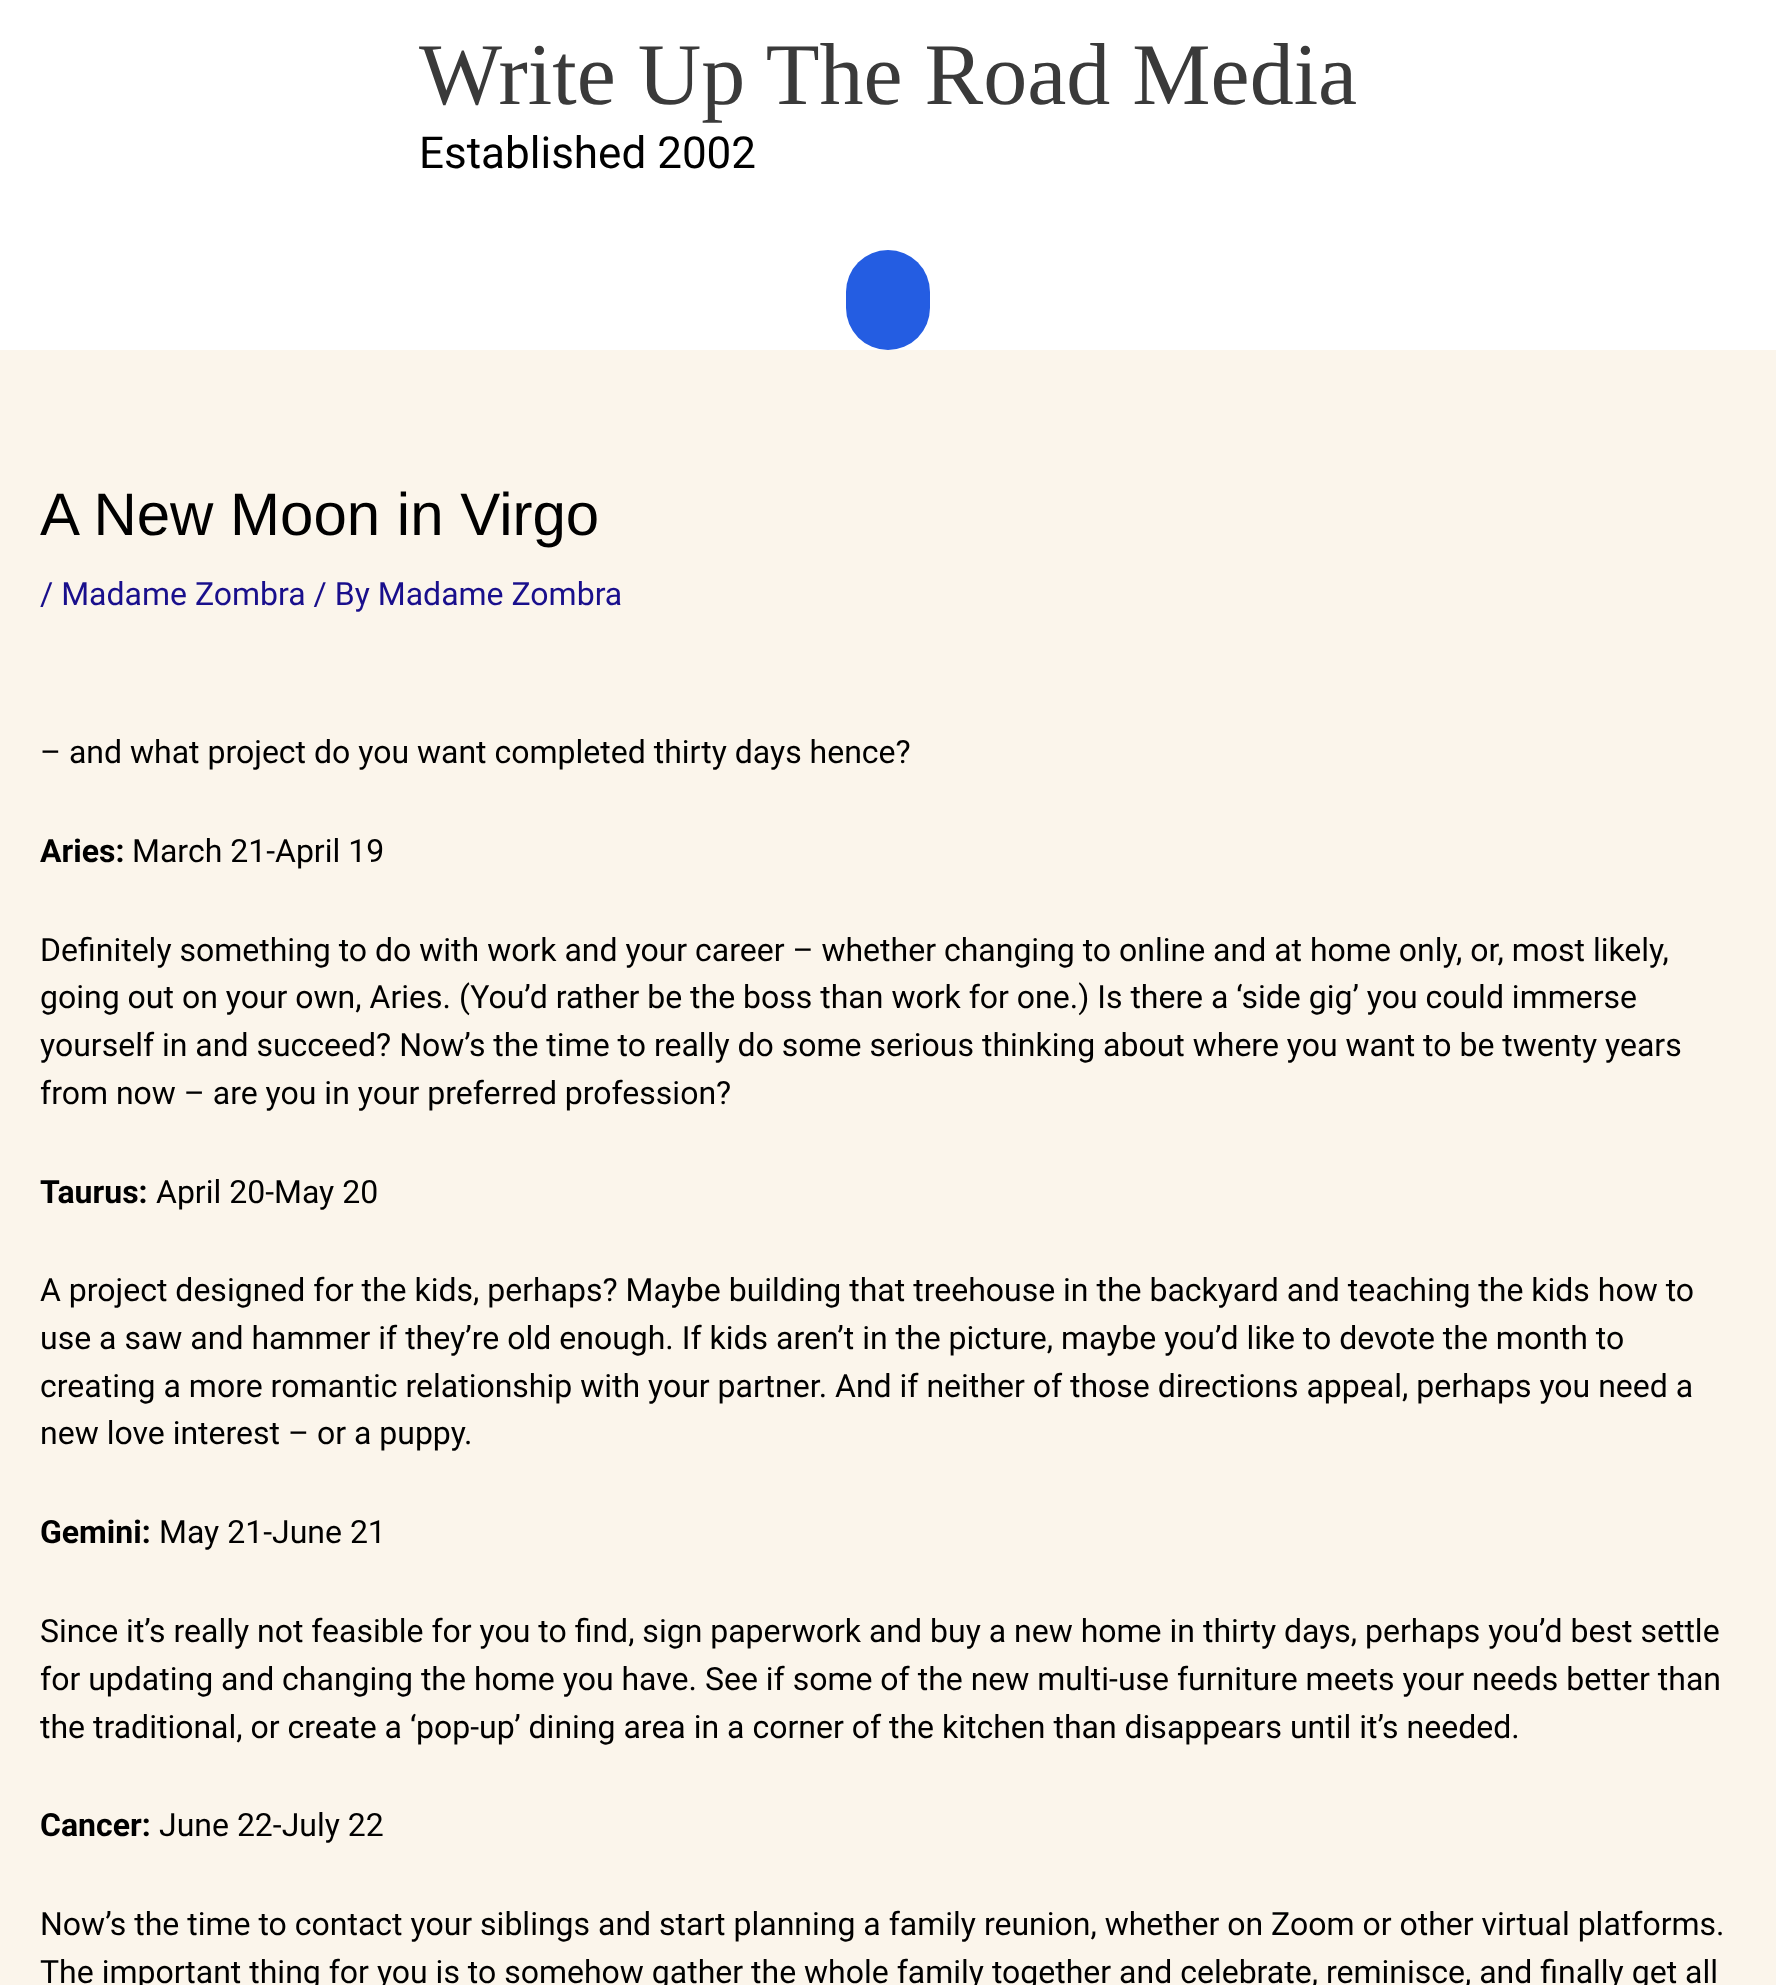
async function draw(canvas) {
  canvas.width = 1776;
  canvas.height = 1985;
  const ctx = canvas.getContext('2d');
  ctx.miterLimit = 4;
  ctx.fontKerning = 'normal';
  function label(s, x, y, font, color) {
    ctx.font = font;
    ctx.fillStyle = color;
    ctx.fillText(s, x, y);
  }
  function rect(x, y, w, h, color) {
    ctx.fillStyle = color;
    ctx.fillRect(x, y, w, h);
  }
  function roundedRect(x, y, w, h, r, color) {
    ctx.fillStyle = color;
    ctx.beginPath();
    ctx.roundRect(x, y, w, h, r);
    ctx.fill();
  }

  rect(0, 0, 1776, 1985, '#fbf5eb');
  rect(0, 0, 1776, 350, '#fff');
  label('Write Up The Road Media', 419, 104, '88px Liberation Serif', '#3a3a3a');
  label('Established 2002', 419, 168, '44px Roboto', '#000');
  roundedRect(846, 250, 84, 100, 42, '#245de2');
  label('A New Moon in Virgo', 40, 535, '60px Liberation Sans', '#000');
  label('/ Madame Zombra / By Madame Zombra', 40, 605, '32px Roboto', '#190f8c');
  label('– and what project do you want completed thirty days hence?', 40, 763, '32px Roboto', '#000');
  label('Aries:', 40, 862, 'bold 32px Roboto', '#000');
  label('March 21-April 19', 132, 862, '32px Roboto', '#000');
  label('Definitely something to do with work and your career – whether changing to online and at home only, or, most likely,', 40, 961, '32px Roboto', '#000');
  label('going out on your own, Aries. (You’d rather be the boss than work for one.) Is there a ‘side gig’ you could immerse', 40, 1008, '32px Roboto', '#000');
  label('yourself in and succeed? Now’s the time to really do some serious thinking about where you want to be twenty years', 40, 1056, '32px Roboto', '#000');
  label('from now – are you in your preferred profession?', 40, 1104, '32px Roboto', '#000');
  label('Taurus:', 40, 1203, 'bold 32px Roboto', '#000');
  label('April 20-May 20', 156, 1203, '32px Roboto', '#000');
  label('A project designed for the kids, perhaps? Maybe building that treehouse in the backyard and teaching the kids how to', 40, 1301, '32px Roboto', '#000');
  label('use a saw and hammer if they’re old enough. If kids aren’t in the picture, maybe you’d like to devote the month to', 40, 1349, '32px Roboto', '#000');
  label('creating a more romantic relationship with your partner. And if neither of those directions appeal, perhaps you need a', 40, 1397, '32px Roboto', '#000');
  label('new love interest – or a puppy.', 40, 1444, '32px Roboto', '#000');
  label('Gemini:', 40, 1543, 'bold 32px Roboto', '#000');
  label('May 21-June 21', 159, 1543, '32px Roboto', '#000');
  label('Since it’s really not feasible for you to find, sign paperwork and buy a new home in thirty days, perhaps you’d best settle', 40, 1642, '32px Roboto', '#000');
  label('for updating and changing the home you have. See if some of the new multi-use furniture meets your needs better than', 40, 1690, '32px Roboto', '#000');
  label('the traditional, or create a ‘pop-up’ dining area in a corner of the kitchen than disappears until it’s needed.', 40, 1738, '32px Roboto', '#000');
  label('Cancer:', 40, 1836, 'bold 32px Roboto', '#000');
  label('June 22-July 22', 159, 1836, '32px Roboto', '#000');
  label('Now’s the time to contact your siblings and start planning a family reunion, whether on Zoom or other virtual platforms.', 40, 1935, '32px Roboto', '#000');
  label('The important thing for you is to somehow gather the whole family together and celebrate, reminisce, and finally get all', 40, 1983, '32px Roboto', '#000');
}

draw(document.querySelector('canvas'));
